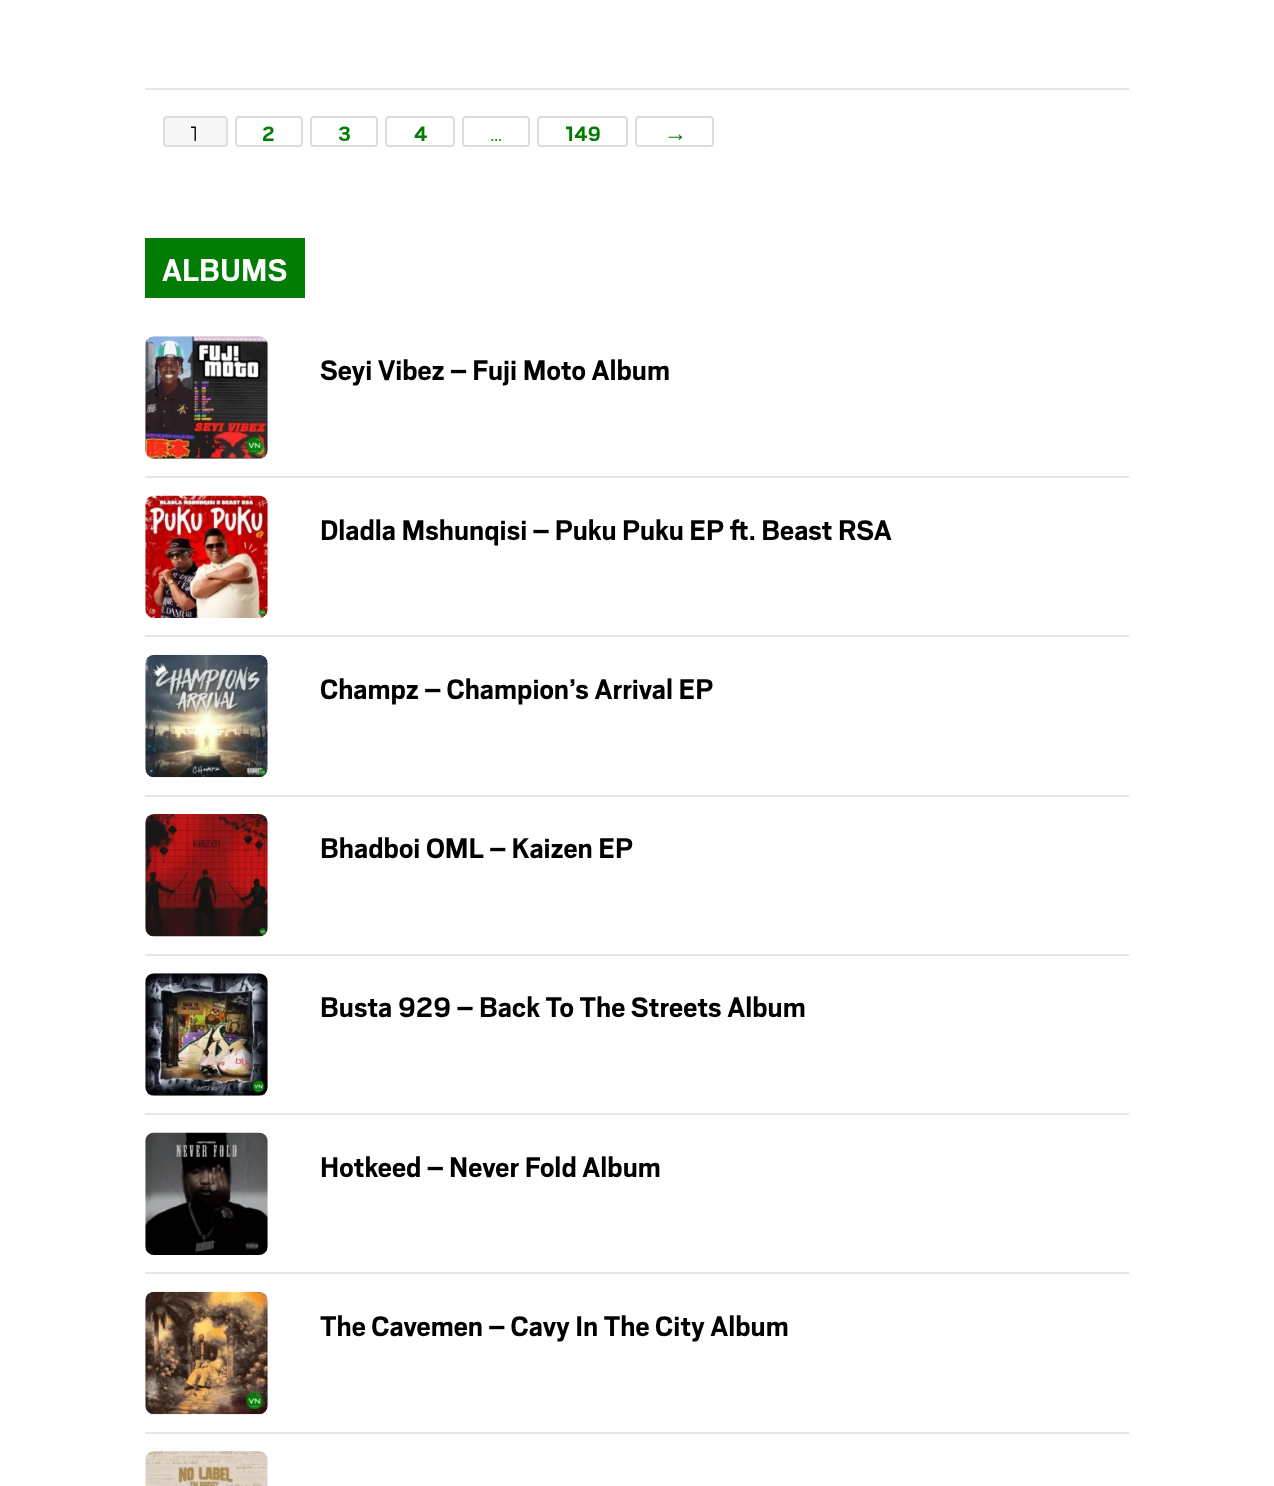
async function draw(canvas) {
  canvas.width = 1274;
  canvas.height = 1486;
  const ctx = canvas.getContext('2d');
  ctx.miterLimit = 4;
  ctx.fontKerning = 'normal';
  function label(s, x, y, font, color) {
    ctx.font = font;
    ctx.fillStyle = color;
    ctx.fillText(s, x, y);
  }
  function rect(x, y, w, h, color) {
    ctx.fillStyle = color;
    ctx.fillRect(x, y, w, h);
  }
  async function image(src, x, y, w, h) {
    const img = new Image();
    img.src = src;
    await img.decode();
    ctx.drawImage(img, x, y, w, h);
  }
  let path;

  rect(0, 0, 1274, 1486, '#fff');
  rect(145, 88, 984, 2, '#e6e6e6');
  ctx.fillStyle = '#f7f7f7';
  ctx.beginPath();
  ctx.roundRect(164, 117, 63, 29, 3);
  ctx.fill();
  ctx.strokeStyle = '#ddd';
  ctx.lineWidth = 2;
  ctx.stroke();
  label('1', 190, 141, '300 23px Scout', '#000');
  ctx.beginPath();
  ctx.roundRect(236, 117, 66, 29, 3);
  ctx.stroke();
  label('2', 262, 141, 'bold 23px Scout', '#027c05');
  ctx.beginPath();
  ctx.roundRect(311, 117, 66, 29, 3);
  ctx.stroke();
  label('3', 338, 141, 'bold 23px Scout', '#027c05');
  ctx.beginPath();
  ctx.roundRect(386, 117, 68, 29, 3);
  ctx.stroke();
  label('4', 414, 141, 'bold 23px Scout', '#027c05');
  ctx.beginPath();
  ctx.roundRect(463, 117, 66, 29, 3);
  ctx.stroke();
  label('…', 490, 141, '300 23px Scout', '#027c05');
  ctx.beginPath();
  ctx.roundRect(538, 117, 89, 29, 3);
  ctx.stroke();
  label('149', 565, 141, 'bold 23px Scout', '#027c05');
  ctx.beginPath();
  ctx.roundRect(636, 117, 77, 29, 3);
  ctx.stroke();
  label('→', 664, 141, '23px Liberation Sans', '#027c05');
  path = new Path2D('M145 238V298H270H163V238Z');
  ctx.fill(path);
  rect(163, 238, 124, 60, '#027c05');
  label('ALBUMS', 162, 281, 'bold 35px Scout', '#fff');
  ctx.fillStyle = '#027c05';
  path = new Path2D('M180 298H305V238H287V298Z');
  ctx.fill(path);
  rect(145, 476, 984, 2, '#e6e6e6');
  await image('assets/img1.png', 145, 336, 123, 123);
  label('Seyi Vibez – Fuji Moto Album', 320, 380, 'bold 31.5px Scout', '#000');
  rect(145, 635, 984, 2, '#e6e6e6');
  await image('assets/img2.png', 145, 495, 123, 123);
  label('Dladla Mshunqisi – Puku Puku EP ft. Beast RSA', 320, 540, 'bold 31.5px Scout', '#000');
  rect(145, 795, 984, 2, '#e6e6e6');
  await image('assets/img3.png', 145, 654, 123, 124);
  label('Champz – Champion’s Arrival EP', 320, 699, 'bold 31.5px Scout', '#000');
  rect(145, 954, 984, 2, '#e6e6e6');
  await image('assets/img4.png', 145, 814, 123, 123);
  label('Bhadboi OML – Kaizen EP', 320, 858, 'bold 31.5px Scout', '#000');
  rect(145, 1113, 984, 2, '#e6e6e6');
  await image('assets/img5.png', 145, 973, 123, 123);
  label('Busta 929 – Back To The Streets Album', 320, 1017, 'bold 31.5px Scout', '#000');
  rect(145, 1272, 984, 2, '#e6e6e6');
  await image('assets/img6.png', 145, 1132, 123, 123);
  label('Hotkeed – Never Fold Album', 320, 1177, 'bold 31.5px Scout', '#000');
  rect(145, 1432, 984, 2, '#e6e6e6');
  await image('assets/img7.png', 145, 1291, 123, 124);
  label('The Cavemen – Cavy In The City Album', 320, 1336, 'bold 31.5px Scout', '#000');
  await image('assets/img8.png', 145, 1451, 123, 35);
}

draw(document.querySelector('canvas'));
